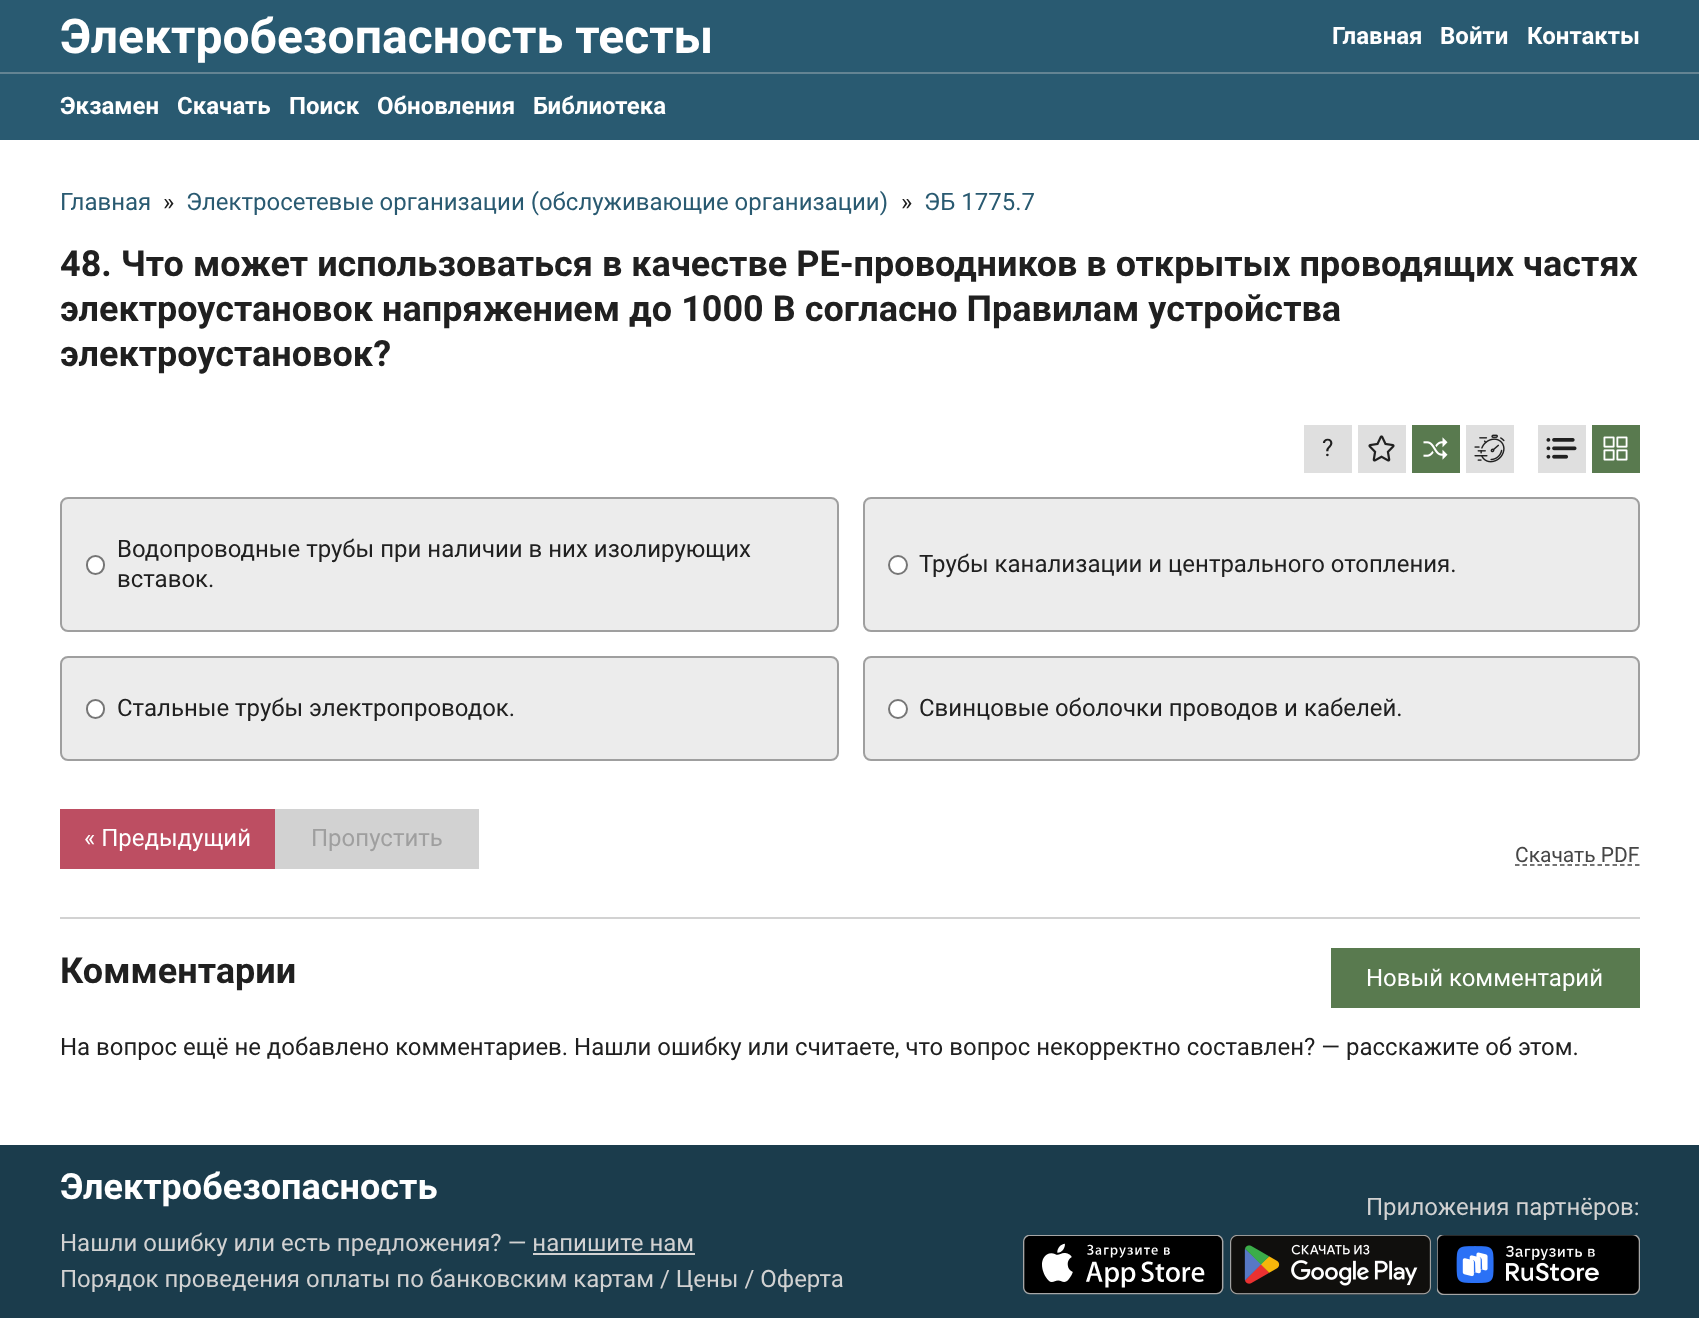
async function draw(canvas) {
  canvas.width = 1699;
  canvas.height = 1318;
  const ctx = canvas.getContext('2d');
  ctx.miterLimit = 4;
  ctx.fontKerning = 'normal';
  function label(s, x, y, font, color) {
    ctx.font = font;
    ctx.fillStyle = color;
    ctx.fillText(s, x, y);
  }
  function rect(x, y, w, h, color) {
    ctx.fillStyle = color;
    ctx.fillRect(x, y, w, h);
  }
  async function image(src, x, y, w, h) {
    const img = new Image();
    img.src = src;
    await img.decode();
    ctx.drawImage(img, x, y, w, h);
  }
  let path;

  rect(0, 0, 1699, 1318, '#fff');
  rect(0, 0, 1699, 140, '#295a71');
  label('Электробезопасность тесты', 60, 53, 'bold 48px Roboto', '#fff');
  label('Главная', 1332, 44, 'bold 24px Roboto', '#fff');
  label('Войти', 1440, 44, 'bold 24px Roboto', '#fff');
  label('Контакты', 1527, 44, 'bold 24px Roboto', '#fff');
  rect(0, 72, 1699, 2, '#648493');
  label('Экзамен', 60, 114, 'bold 24px Roboto', '#fff');
  label('Скачать', 177, 114, 'bold 24px Roboto', '#fff');
  label('Поиск', 289, 114, 'bold 24px Roboto', '#fff');
  label('Обновления', 377, 114, 'bold 24px Roboto', '#fff');
  label('Библиотека', 533, 114, 'bold 24px Roboto', '#fff');
  label('Главная', 60, 210, '24px Roboto', '#295a71');
  label('»', 163, 210, '24px Roboto', '#202020');
  label('Электросетевые организации (обслуживающие организации)', 186, 210, '24px Roboto', '#295a71');
  label('»', 901, 210, '24px Roboto', '#202020');
  label('ЭБ 1775.7', 924, 210, '24px Roboto', '#295a71');
  label('48. Что может использоваться в качестве РЕ-проводников в открытых проводящих частях', 60, 276, 'bold 36px Roboto', '#202020');
  label('электроустановок напряжением до 1000 В согласно Правилам устройства', 60, 321, 'bold 36px Roboto', '#202020');
  label('электроустановок?', 60, 366, 'bold 36px Roboto', '#202020');
  rect(1304, 425, 48, 48, '#dfdfdf');
  label('?', 1322, 456, '24px Roboto', '#202020');
  rect(1358, 425, 48, 48, '#dfdfdf');
  await image('assets/img1.png', 1368, 435, 27, 27);
  rect(1412, 425, 48, 48, '#597a4f');
  await image('assets/img2.png', 1423, 437, 25, 23);
  rect(1466, 425, 48, 48, '#dfdfdf');
  await image('assets/img3.png', 1474, 434, 31, 29);
  rect(1538, 425, 48, 48, '#dfdfdf');
  await image('assets/img4.png', 1546, 438, 31, 21);
  rect(1592, 425, 48, 48, '#597a4f');
  await image('assets/img5.png', 1603, 436, 25, 25);
  ctx.fillStyle = '#ececec';
  ctx.beginPath();
  ctx.roundRect(61, 498, 777, 133, 7);
  ctx.fill();
  ctx.strokeStyle = '#9f9f9f';
  ctx.lineWidth = 2;
  ctx.stroke();
  ctx.fillStyle = '#fff';
  ctx.beginPath();
  ctx.roundRect(87, 556, 17, 18, 8.5);
  ctx.fill();
  ctx.strokeStyle = '#767676';
  ctx.stroke();
  label('Водопроводные трубы при наличии в них изолирующих', 117, 557, '24px Roboto', '#202020');
  label('вставок.', 117, 587, '24px Roboto', '#202020');
  ctx.fillStyle = '#ececec';
  ctx.beginPath();
  ctx.roundRect(864, 498, 775, 133, 7);
  ctx.fill();
  ctx.strokeStyle = '#9f9f9f';
  ctx.stroke();
  ctx.fillStyle = '#fff';
  ctx.beginPath();
  ctx.arc(898, 565, 9, 0, 2 * Math.PI);
  ctx.fill();
  ctx.strokeStyle = '#767676';
  ctx.stroke();
  label('Трубы канализации и центрального отопления.', 919, 572, '24px Roboto', '#202020');
  ctx.fillStyle = '#ececec';
  ctx.beginPath();
  ctx.roundRect(61, 657, 777, 103, 7);
  ctx.fill();
  ctx.strokeStyle = '#9f9f9f';
  ctx.stroke();
  ctx.fillStyle = '#fff';
  ctx.beginPath();
  ctx.roundRect(87, 700, 17, 18, 8.5);
  ctx.fill();
  ctx.strokeStyle = '#767676';
  ctx.stroke();
  label('Стальные трубы электропроводок.', 117, 716, '24px Roboto', '#202020');
  ctx.fillStyle = '#ececec';
  ctx.beginPath();
  ctx.roundRect(864, 657, 775, 103, 7);
  ctx.fill();
  ctx.strokeStyle = '#9f9f9f';
  ctx.stroke();
  ctx.fillStyle = '#fff';
  ctx.beginPath();
  ctx.arc(898, 709, 9, 0, 2 * Math.PI);
  ctx.fill();
  ctx.strokeStyle = '#767676';
  ctx.stroke();
  label('Свинцовые оболочки проводов и кабелей.', 919, 716, '24px Roboto', '#202020');
  rect(60, 809, 215, 60, '#bd4e62');
  label('« Предыдущий', 84, 846, '24px Roboto', '#fff');
  rect(275, 809, 204, 60, '#d2d2d2');
  label('Пропустить', 311, 846, '24px Roboto', '#9f9f9f');
  label('Скачать PDF', 1515, 862, '21px Roboto', '#464646');
  path = new Path2D('M1515 865H1639.5');
  ctx.strokeStyle = '#464646';
  ctx.lineWidth = 1.5;
  ctx.setLineDash([4.5, 3]);
  ctx.stroke(path);
  rect(60, 917, 1580, 2, '#d2d2d2');
  label('Комментарии', 60, 983, 'bold 36px Roboto', '#202020');
  rect(1331, 948, 309, 60, '#597a4f');
  label('Новый комментарий', 1366, 986, '24px Roboto', '#fff');
  label('На вопрос ещё не добавлено комментариев. Нашли ошибку или считаете, что вопрос некорректно составлен? — расскажите об этом.', 60, 1055, '24px Roboto', '#202020');
  rect(0, 1145, 1699, 173, '#1b3c4c');
  label('Электробезопасность', 60, 1199, 'bold 36px Roboto', '#fff');
  label('Нашли ошибку или есть предложения? — напишите нам', 60, 1251, '24px Roboto', '#d2d2d2');
  rect(533, 1253, 162, 2, '#d2d2d2');
  label('Порядок проведения оплаты по банковским картам / Цены / Оферта', 60, 1287, '24px Roboto', '#d2d2d2');
  label('Приложения партнёров:', 1366, 1215, '24px Roboto', '#d2d2d2');
  await image('assets/img6.png', 1023, 1235, 201, 60);
  await image('assets/img7.png', 1230, 1235, 201, 60);
  await image('assets/img8.png', 1437, 1235, 203, 60);
}

draw(document.querySelector('canvas'));
